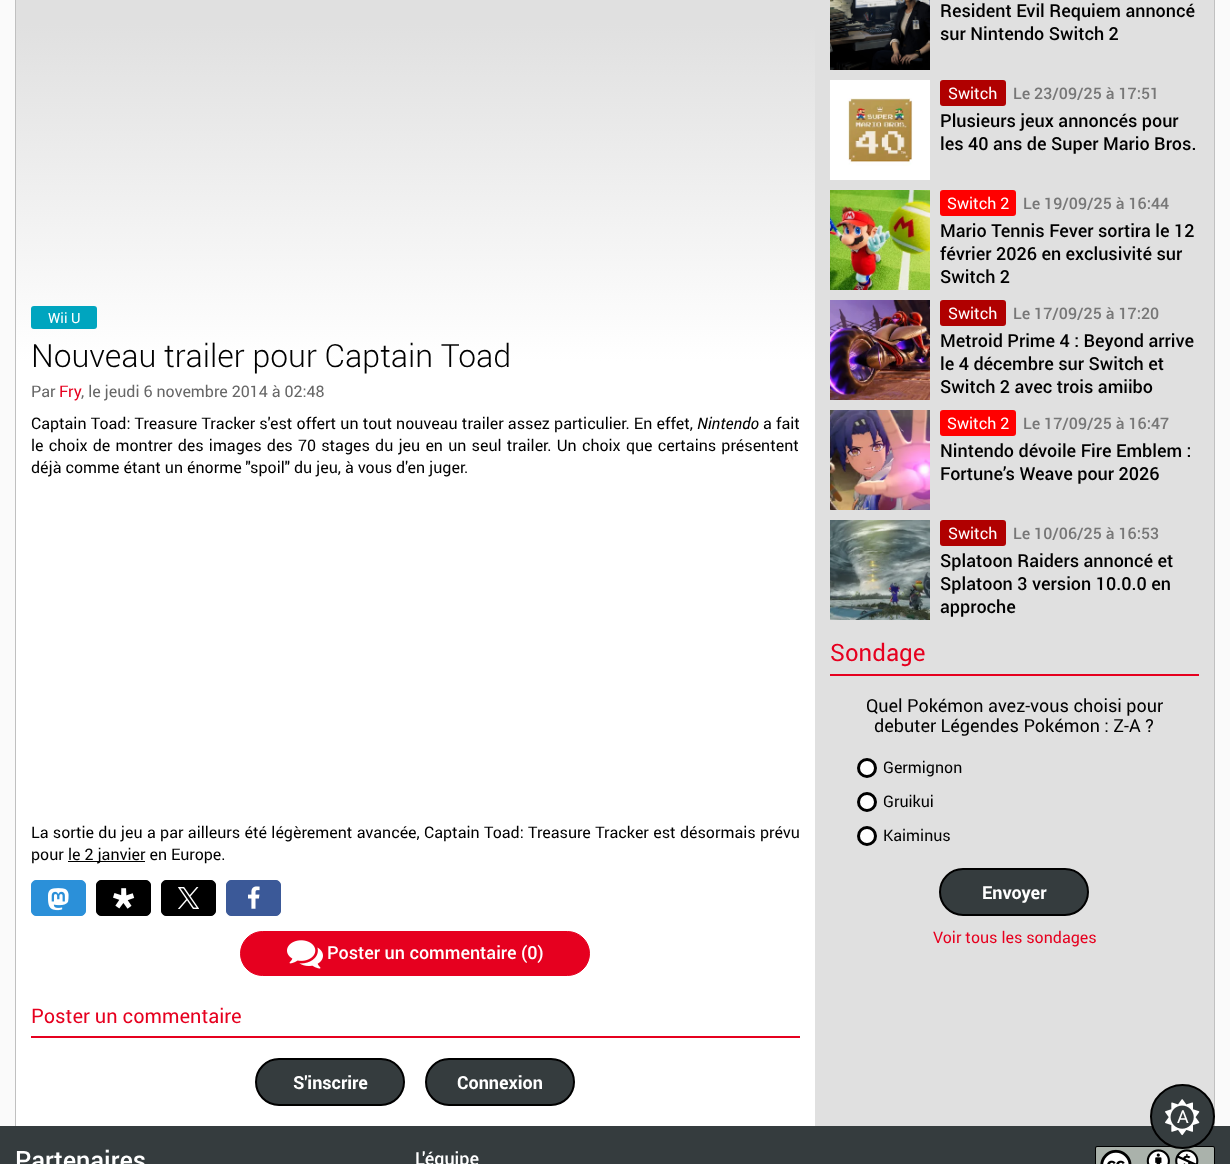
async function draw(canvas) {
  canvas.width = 1230;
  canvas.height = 1164;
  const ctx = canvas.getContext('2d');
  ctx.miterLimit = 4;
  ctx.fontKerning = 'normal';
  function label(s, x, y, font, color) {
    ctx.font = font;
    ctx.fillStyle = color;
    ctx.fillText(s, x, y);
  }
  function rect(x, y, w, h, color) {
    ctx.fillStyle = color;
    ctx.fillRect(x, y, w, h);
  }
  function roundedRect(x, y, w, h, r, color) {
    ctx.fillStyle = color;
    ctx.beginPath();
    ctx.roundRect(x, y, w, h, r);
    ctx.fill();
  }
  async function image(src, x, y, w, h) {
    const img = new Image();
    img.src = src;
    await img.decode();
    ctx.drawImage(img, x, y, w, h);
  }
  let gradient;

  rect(0, 0, 1230, 1164, '#fafafa');
  rect(16, 361, 799, 765, '#fff');
  rect(1214, 0, 1, 1126, '#c0c0c0');
  rect(15, 0, 1, 1126, '#c0c0c0');
  rect(815, 0, 399, 1126, '#e0e0e0');
  gradient = ctx.createLinearGradient(416, -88, 416, 361);
  gradient.addColorStop(0.25, '#e0e0e0');
  gradient.addColorStop(1, '#fff');
  ctx.fillStyle = gradient;
  ctx.fillRect(16, 0, 799, 361);
  roundedRect(31, 306, 66, 23, 3, '#00a5bf');
  label('Wii U', 48, 323, '14px Roboto', '#fff');
  label('Nouveau trailer pour Captain Toad', 31, 367, '300 32px Roboto', '#000');
  label('Par', 31, 397, '16px Roboto', '#676767');
  label('Fry', 59, 397, '16px Roboto', '#e6001f');
  label(', le jeudi 6 novembre 2014 à 02:48', 81, 397, '16px Roboto', '#676767');
  ctx.wordSpacing = '0.2px';
  label('Captain Toad: Treasure Tracker s\'est offert un tout nouveau trailer assez particulier. En effet,', 31, 429, '16px Roboto', '#000');
  ctx.wordSpacing = '0px';
  label('Nintendo', 697, 429, 'italic 16px Roboto', '#000');
  ctx.wordSpacing = '0.2px';
  label('a fait', 763, 429, '16px Roboto', '#000');
  ctx.wordSpacing = '1.25px';
  label('le choix de montrer des images des 70 stages du jeu en un seul trailer. Un choix que certains présentent', 31, 451, '16px Roboto', '#000');
  ctx.wordSpacing = '0px';
  label('déjà comme étant un énorme "spoil" du jeu, à vous d\'en juger.', 31, 473, '16px Roboto', '#000');
  ctx.wordSpacing = '0.4px';
  label('La sortie du jeu a par ailleurs été légèrement avancée, Captain Toad: Treasure Tracker est désormais prévu', 31, 838, '16px Roboto', '#000');
  ctx.wordSpacing = '0px';
  label('pour', 31, 860, '16px Roboto', '#000');
  rect(68, 861, 77, 1, '#000');
  label('le 2 janvier en Europe.', 68, 860, '16px Roboto', '#000');
  ctx.fillStyle = '#2b90d9';
  ctx.beginPath();
  ctx.roundRect(31.5, 880.5, 54, 35, 4.5);
  ctx.fill();
  ctx.strokeStyle = '#2b90d9';
  ctx.stroke();
  await image('assets/img1.png', 48, 888, 21, 23);
  ctx.fillStyle = '#000';
  ctx.beginPath();
  ctx.roundRect(96.5, 880.5, 54, 35, 4.5);
  ctx.fill();
  ctx.strokeStyle = '#000';
  ctx.stroke();
  await image('assets/img2.png', 113, 888, 22, 21);
  ctx.beginPath();
  ctx.roundRect(161.5, 880.5, 54, 35, 4.5);
  ctx.fill();
  ctx.stroke();
  await image('assets/img3.png', 178, 887, 21, 22);
  ctx.fillStyle = '#3b5998';
  ctx.beginPath();
  ctx.roundRect(226.5, 880.5, 54, 35, 4.5);
  ctx.fill();
  ctx.strokeStyle = '#3b5998';
  ctx.stroke();
  await image('assets/img4.png', 248, 886, 12, 23);
  ctx.fillStyle = '#e6001f';
  ctx.beginPath();
  ctx.roundRect(240.5, 931.5, 349, 44, 22);
  ctx.fill();
  ctx.strokeStyle = '#e6001f';
  ctx.stroke();
  await image('assets/img5.png', 287, 940, 36, 29);
  label('Poster un commentaire (0)', 327, 959, '500 18px Roboto', '#fff');
  rect(31, 1036, 769, 2, '#e6001f');
  label('Poster un commentaire', 31, 1023, '20px Roboto', '#e6001f');
  ctx.fillStyle = '#353c3e';
  ctx.beginPath();
  ctx.roundRect(256, 1059, 148, 46, 23);
  ctx.fill();
  ctx.strokeStyle = '#000';
  ctx.lineWidth = 2;
  ctx.stroke();
  label('S\'inscrire', 293, 1089, 'bold 18px Roboto', '#fff');
  ctx.fillStyle = '#353c3e';
  ctx.beginPath();
  ctx.roundRect(426, 1059, 148, 46, 23);
  ctx.fill();
  ctx.stroke();
  label('Connexion', 457, 1089, 'bold 18px Roboto', '#fff');
  await image('assets/img6.png', 830, 0, 100, 70);
  label('Resident Evil Requiem annoncé', 940, 17, '500 18px Roboto', '#000');
  label('sur Nintendo Switch 2', 940, 40, '500 18px Roboto', '#000');
  rect(830, 80, 100, 100, '#fff');
  await image('assets/img7.png', 847, 98, 66, 68);
  roundedRect(940, 80, 66, 26, 3, '#b00000');
  label('Switch', 948, 99, '16px Roboto', '#fff');
  label('Le 23/09/25 à 17:51', 1013, 99, '500 16px Roboto', '#777');
  label('Plusieurs jeux annoncés pour', 940, 127, '500 18px Roboto', '#000');
  label('les 40 ans de Super Mario Bros.', 940, 150, '500 18px Roboto', '#000');
  await image('assets/img8.png', 830, 190, 100, 100);
  roundedRect(940, 190, 76, 26, 3, '#f00');
  label('Switch 2', 947, 209, '16px Roboto', '#fff');
  label('Le 19/09/25 à 16:44', 1023, 209, '500 16px Roboto', '#777');
  label('Mario Tennis Fever sortira le 12', 940, 237, '500 18px Roboto', '#000');
  label('février 2026 en exclusivité sur', 940, 260, '500 18px Roboto', '#000');
  label('Switch 2', 940, 283, '500 18px Roboto', '#000');
  await image('assets/img9.png', 830, 300, 100, 100);
  roundedRect(940, 300, 66, 26, 3, '#b00000');
  label('Switch', 948, 319, '16px Roboto', '#fff');
  label('Le 17/09/25 à 17:20', 1013, 319, '500 16px Roboto', '#777');
  label('Metroid Prime 4 : Beyond arrive', 940, 347, '500 18px Roboto', '#000');
  label('le 4 décembre sur Switch et', 940, 370, '500 18px Roboto', '#000');
  label('Switch 2 avec trois amiibo', 940, 393, '500 18px Roboto', '#000');
  await image('assets/img10.png', 830, 410, 100, 100);
  roundedRect(940, 410, 76, 26, 3, '#f00');
  label('Switch 2', 947, 429, '16px Roboto', '#fff');
  label('Le 17/09/25 à 16:47', 1023, 429, '500 16px Roboto', '#777');
  label('Nintendo dévoile Fire Emblem :', 940, 457, '500 18px Roboto', '#000');
  label('Fortune’s Weave pour 2026', 940, 480, '500 18px Roboto', '#000');
  await image('assets/img11.png', 830, 520, 100, 100);
  roundedRect(940, 520, 66, 26, 3, '#b00000');
  label('Switch', 948, 539, '16px Roboto', '#fff');
  label('Le 10/06/25 à 16:53', 1013, 539, '500 16px Roboto', '#777');
  label('Splatoon Raiders annoncé et', 940, 567, '500 18px Roboto', '#000');
  label('Splatoon 3 version 10.0.0 en', 940, 590, '500 18px Roboto', '#000');
  label('approche', 940, 613, '500 18px Roboto', '#000');
  rect(830, 674, 369, 2, '#e6001f');
  label('Sondage', 830, 661, '24px Roboto', '#e6001f');
  label('Quel Pokémon avez-vous choisi pour', 866, 712, '18px Roboto', '#000');
  label('debuter Légendes Pokémon : Z-A ?', 874, 732, '18px Roboto', '#000');
  ctx.fillStyle = '#fff';
  ctx.beginPath();
  ctx.arc(867, 768, 8.5, 0, 2 * Math.PI);
  ctx.fill();
  ctx.lineWidth = 3;
  ctx.stroke();
  label('Germignon', 883, 773, '16px Roboto', '#000');
  ctx.fillStyle = '#fff';
  ctx.beginPath();
  ctx.arc(867, 802, 8.5, 0, 2 * Math.PI);
  ctx.fill();
  ctx.stroke();
  label('Gruikui', 883, 807, '16px Roboto', '#000');
  ctx.fillStyle = '#fff';
  ctx.beginPath();
  ctx.arc(867, 836, 8.5, 0, 2 * Math.PI);
  ctx.fill();
  ctx.stroke();
  label('Kaiminus', 883, 841, '16px Roboto', '#000');
  ctx.fillStyle = '#353c3e';
  ctx.beginPath();
  ctx.roundRect(940, 869, 148, 46, 23);
  ctx.fill();
  ctx.lineWidth = 2;
  ctx.stroke();
  label('Envoyer', 982, 899, 'bold 18px Roboto', '#fff');
  label('Voir tous les sondages', 933, 943, '16px Roboto', '#e6001f');
  rect(0, 1126, 1230, 38, '#353c3e');
  await image('assets/img13.png', 1095, 1146, 120, 18);
  ctx.beginPath();
  ctx.arc(1182.5, 1116.5, 31.5, 0, 2 * Math.PI);
  ctx.fill();
  ctx.stroke();
  await image('assets/img12.png', 1165, 1099, 35, 37);
  label('A', 1177, 1123, '18px Roboto', '#fff');
  label('Partenaires', 15, 1169, '500 25.25px Roboto', '#fff');
  label('L\'équipe', 415, 1165, '500 18px Roboto', '#fff');
}

draw(document.querySelector('canvas'));
